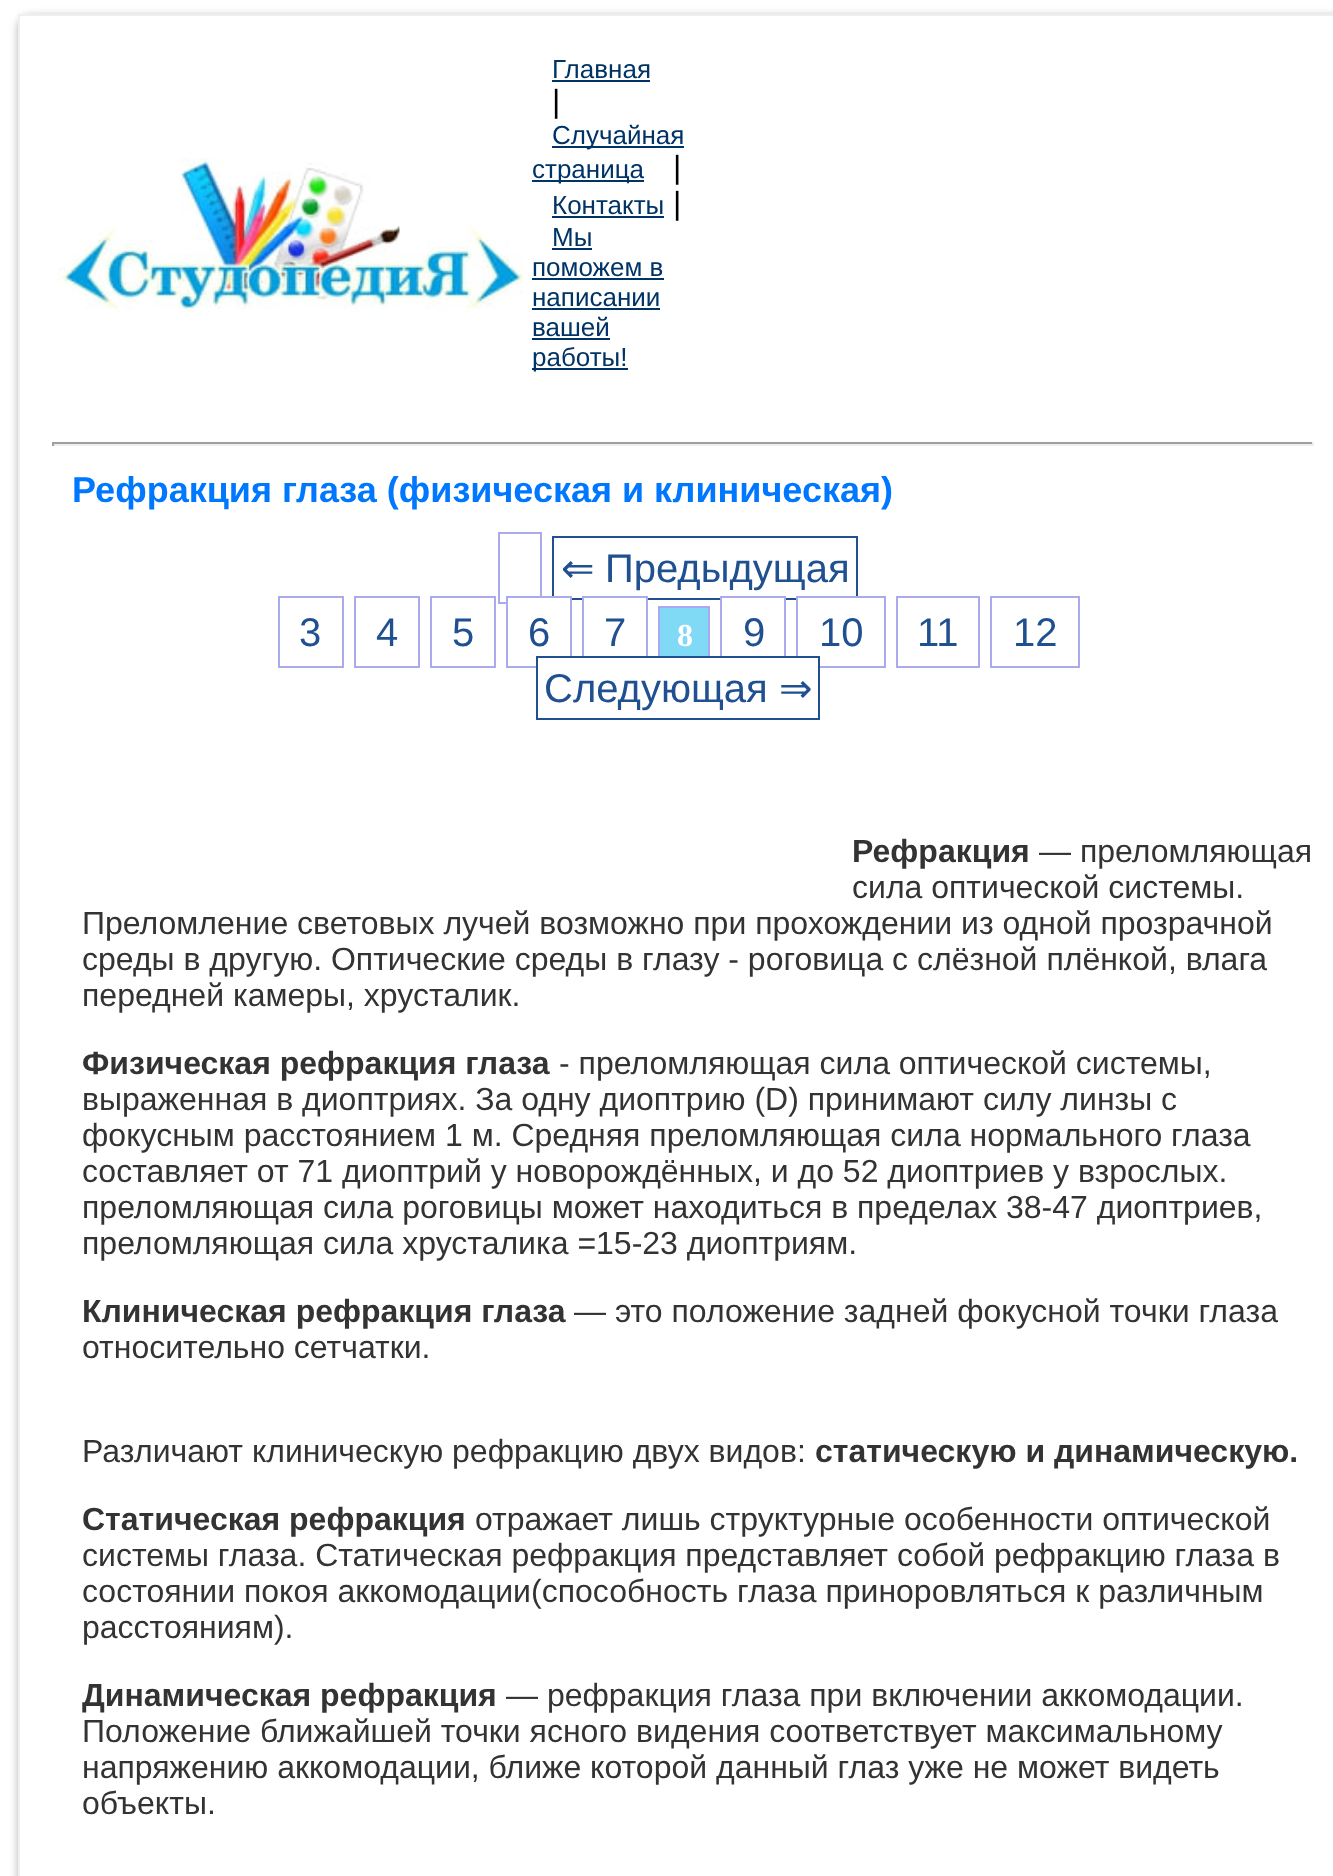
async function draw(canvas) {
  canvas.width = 1333;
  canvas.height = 1876;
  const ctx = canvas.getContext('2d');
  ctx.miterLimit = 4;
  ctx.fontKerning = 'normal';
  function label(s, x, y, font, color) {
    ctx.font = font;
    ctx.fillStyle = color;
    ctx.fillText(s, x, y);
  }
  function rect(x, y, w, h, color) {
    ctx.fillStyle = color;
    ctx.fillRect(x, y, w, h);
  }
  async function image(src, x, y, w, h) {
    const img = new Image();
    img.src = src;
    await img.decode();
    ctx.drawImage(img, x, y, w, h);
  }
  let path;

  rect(0, 0, 1333, 1876, '#fff');
  ctx.fillStyle = '#0000004d';
  ctx.filter = 'blur(4px)';
  ctx.beginPath();
  ctx.roundRect(18, 16, 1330, 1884, 12);
  ctx.fill();
  ctx.filter = 'none';
  ctx.fillStyle = '#fff';
  path = new Path2D('M18 14H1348V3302C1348 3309 1241 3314 1108 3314H258C125 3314 18 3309 18 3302Z');
  ctx.fill(path);
  path = new Path2D('M19 15H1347V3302C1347 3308 1240 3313 1108 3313H258C126 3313 19 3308 19 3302Z');
  ctx.strokeStyle = '#efefef';
  ctx.lineWidth = 2;
  ctx.stroke(path);
  await image('assets/img1.png', 58, 158, 466, 154);
  label('Главная', 552, 78, '26px Liberation Sans', '#036');
  rect(552, 80, 98, 2, '#036');
  label('|', 552, 112, '32px Liberation Sans', '#000');
  rect(552, 146, 132, 2, '#036');
  label('Случайная', 552, 144, '26px Liberation Sans', '#036');
  rect(532, 180, 112, 2, '#036');
  label('страница', 532, 178, '26px Liberation Sans', '#036');
  label('|', 673, 178, '32px Liberation Sans', '#000');
  label('Контакты', 552, 214, '26px Liberation Sans', '#036');
  rect(552, 216, 112, 2, '#036');
  label('|', 673, 214, '32px Liberation Sans', '#000');
  label('Мы', 552, 246, '26px Liberation Sans', '#036');
  rect(552, 248, 40, 2, '#036');
  label('поможем в', 532, 276, '26px Liberation Sans', '#036');
  rect(532, 278, 132, 2, '#036');
  label('написании', 532, 306, '26px Liberation Sans', '#036');
  rect(532, 308, 128, 2, '#036');
  label('вашей', 532, 336, '26px Liberation Sans', '#036');
  rect(532, 338, 78, 2, '#036');
  rect(532, 368, 96, 2, '#036');
  label('работы!', 532, 366, '26px Liberation Sans', '#036');
  rect(52, 442, 1262, 2, '#9f9f9f');
  rect(1312, 442, 2, 4, '#eee');
  rect(52, 444, 1262, 2, '#eee');
  rect(52, 442, 2, 4, '#9f9f9f');
  label('Рефракция глаза (физическая и клиническая)', 72, 502, 'bold 36px Liberation Sans', '#07f');
  ctx.strokeStyle = '#aae';
  ctx.strokeRect(499, 533, 42, 70);
  ctx.strokeStyle = '#205090';
  ctx.strokeRect(553, 537, 304, 62);
  label('⇐', 561, 582, '40px DejaVu Sans', '#205090');
  label('Предыдущая', 605, 582, '40px Liberation Sans', '#205090');
  ctx.strokeStyle = '#aae';
  ctx.strokeRect(279, 597, 64, 70);
  label('3', 299, 646, '40px Liberation Sans', '#205090');
  ctx.strokeRect(355, 597, 64, 70);
  label('4', 376, 646, '40px Liberation Sans', '#205090');
  ctx.strokeRect(431, 597, 64, 70);
  label('5', 452, 646, '40px Liberation Sans', '#205090');
  rect(508, 598, 62, 6, '#fff');
  ctx.strokeRect(507, 597, 64, 70);
  label('6', 528, 646, '40px Liberation Sans', '#205090');
  rect(584, 598, 62, 2, '#fff');
  ctx.strokeRect(583, 597, 64, 70);
  label('7', 604, 646, '40px Liberation Sans', '#205090');
  rect(660, 608, 48, 48, '#81daf5');
  ctx.strokeRect(659, 607, 50, 56);
  label('8', 677, 646, 'bold 32px Liberation Serif', '#fff');
  rect(722, 598, 62, 2, '#fff');
  ctx.strokeRect(721, 597, 64, 70);
  label('9', 743, 646, '40px Liberation Sans', '#205090');
  rect(798, 598, 60, 2, '#fff');
  ctx.strokeRect(797, 597, 88, 70);
  label('10', 819, 646, '40px Liberation Sans', '#205090');
  ctx.strokeRect(897, 597, 82, 70);
  label('11', 917, 646, '40px Liberation Sans', '#205090');
  ctx.strokeRect(991, 597, 88, 70);
  label('12', 1013, 646, '40px Liberation Sans', '#205090');
  rect(538, 658, 280, 10, '#fff');
  ctx.strokeStyle = '#205090';
  ctx.strokeRect(537, 657, 282, 62);
  label('Следующая', 544, 702, '40px Liberation Sans', '#205090');
  label('⇒', 779, 702, '40px DejaVu Sans', '#205090');
  label('Рефракция', 852, 862, 'bold 32px Liberation Sans', '#333');
  label('— преломляющая', 1039, 862, '32px Liberation Sans', '#333');
  label('сила оптической системы.', 852, 898, '32px Liberation Sans', '#333');
  label('Преломление световых лучей возможно при прохождении из одной прозрачной', 82, 934, '32px Liberation Sans', '#333');
  label('среды в другую. Оптические среды в глазу - роговица с слёзной плёнкой, влага', 82, 970, '32px Liberation Sans', '#333');
  label('передней камеры, хрусталик.', 82, 1006, '32px Liberation Sans', '#333');
  label('Физическая рефракция глаза', 82, 1074, 'bold 32px Liberation Sans', '#333');
  label('- преломляющая сила оптической системы,', 559, 1074, '32px Liberation Sans', '#333');
  label('выраженная в диоптриях. За одну диоптрию (D) принимают силу линзы с', 82, 1110, '32px Liberation Sans', '#333');
  label('фокусным расстоянием 1 м. Средняя преломляющая сила нормального глаза', 82, 1146, '32px Liberation Sans', '#333');
  label('составляет от 71 диоптрий у новорождённых, и до 52 диоптриев у взрослых.', 82, 1182, '32px Liberation Sans', '#333');
  label('преломляющая сила роговицы может находиться в пределах 38-47 диоптриев,', 82, 1218, '32px Liberation Sans', '#333');
  label('преломляющая сила хрусталика =15-23 диоптриям.', 82, 1254, '32px Liberation Sans', '#333');
  label('Клиническая рефракция глаза', 82, 1322, 'bold 32px Liberation Sans', '#333');
  label('— это положение задней фокусной точки глаза', 574, 1322, '32px Liberation Sans', '#333');
  label('относительно сетчатки.', 82, 1358, '32px Liberation Sans', '#333');
  label('Различают клиническую рефракцию двух видов:', 82, 1462, '32px Liberation Sans', '#333');
  label('статическую и динамическую.', 815, 1462, 'bold 32px Liberation Sans', '#333');
  label('Статическая рефракция', 82, 1530, 'bold 32px Liberation Sans', '#333');
  label('отражает лишь структурные особенности оптической', 475, 1530, '32px Liberation Sans', '#333');
  label('системы глаза. Статическая рефракция представляет собой рефракцию глаза в', 82, 1566, '32px Liberation Sans', '#333');
  label('состоянии покоя аккомодации(способность глаза приноровляться к различным', 82, 1602, '32px Liberation Sans', '#333');
  label('расстояниям).', 82, 1638, '32px Liberation Sans', '#333');
  label('Динамическая рефракция', 82, 1706, 'bold 32px Liberation Sans', '#333');
  label('— рефракция глаза при включении аккомодации.', 506, 1706, '32px Liberation Sans', '#333');
  label('Положение ближайшей точки ясного видения соответствует максимальному', 82, 1742, '32px Liberation Sans', '#333');
  label('напряжению аккомодации, ближе которой данный глаз уже не может видеть', 82, 1778, '32px Liberation Sans', '#333');
  label('объекты.', 82, 1814, '32px Liberation Sans', '#333');
}

draw(document.querySelector('canvas'));
